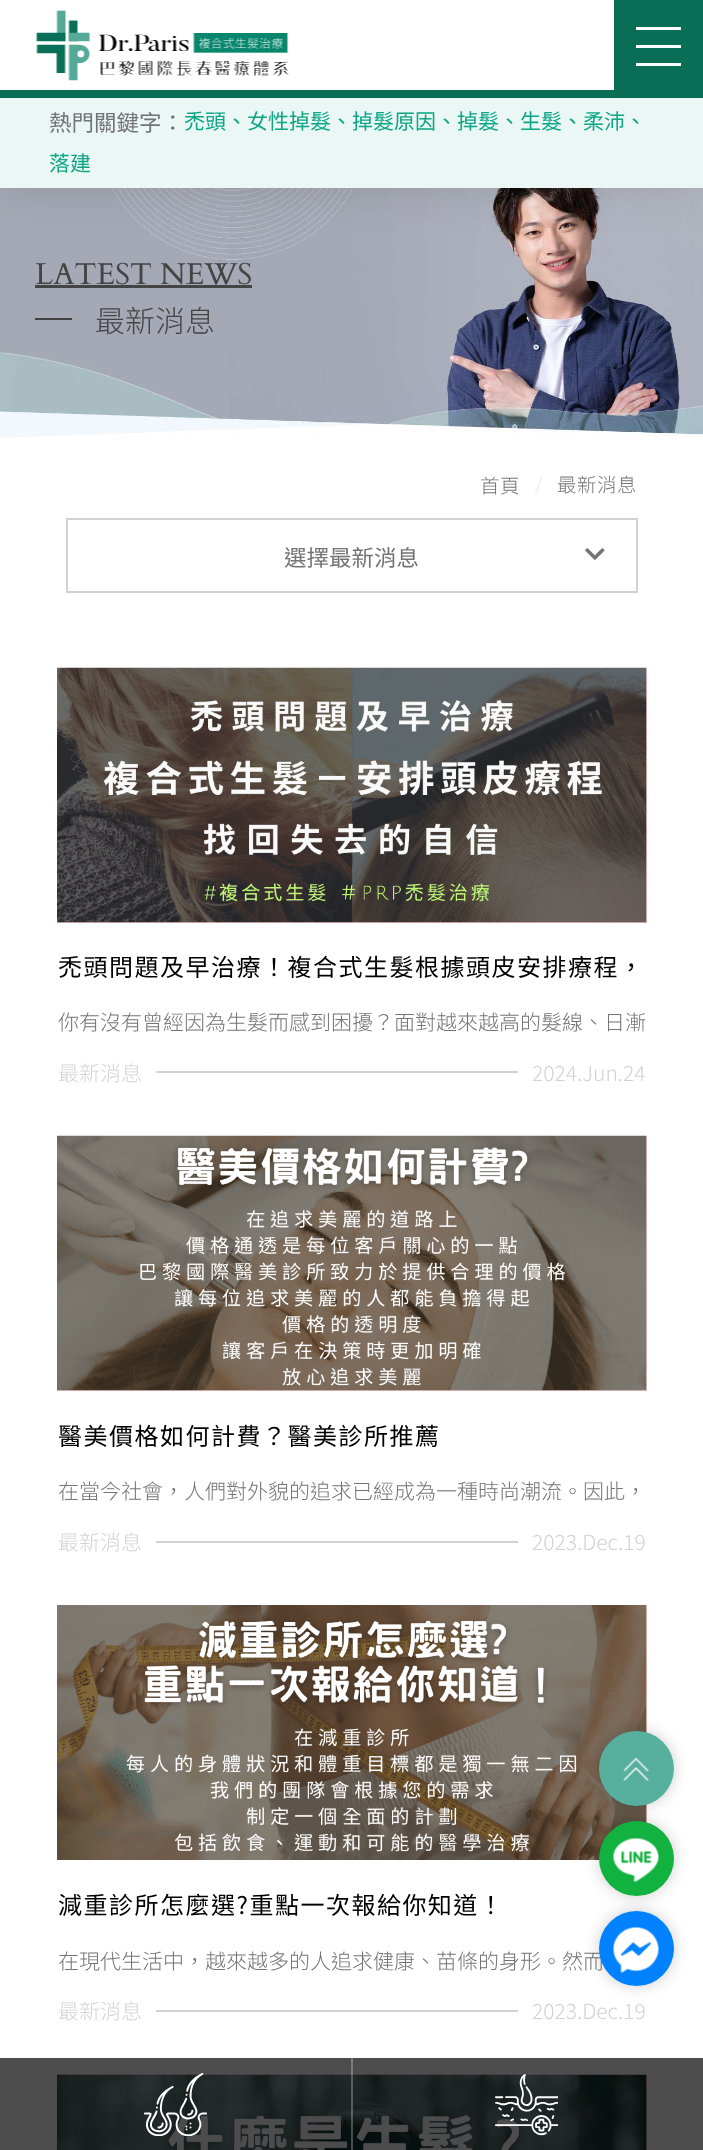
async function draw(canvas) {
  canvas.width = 703;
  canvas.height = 2150;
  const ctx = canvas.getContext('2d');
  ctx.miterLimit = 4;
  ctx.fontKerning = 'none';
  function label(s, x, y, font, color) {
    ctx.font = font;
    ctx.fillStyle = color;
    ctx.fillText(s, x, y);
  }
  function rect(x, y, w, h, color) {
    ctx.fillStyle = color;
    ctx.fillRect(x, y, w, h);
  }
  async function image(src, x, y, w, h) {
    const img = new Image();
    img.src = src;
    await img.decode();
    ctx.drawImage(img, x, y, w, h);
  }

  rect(0, 0, 703, 2150, '#fff');
  rect(0, 2058, 703, 92, '#4d4d4d');
  await image('assets/img2.png', 0, 188, 703, 250);
  ctx.fillStyle = '#0001011f';
  ctx.filter = 'blur(22.5px)';
  ctx.beginPath();
  ctx.rect(0, 0, 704, 188);
  ctx.fill();
  ctx.filter = 'none';
  rect(0, 0, 614, 90, '#fff');
  await image('assets/img1.png', 36, 10, 253, 71);
  rect(614, 0, 89, 90, '#0a6e56');
  rect(636, 27, 45, 3, '#fff');
  rect(636, 45, 45, 3, '#fff');
  rect(636, 63, 45, 3, '#fff');
  rect(0, 98, 703, 90, '#eaf7f5');
  rect(0, 90, 703, 8, '#0a6e56');
  label('熱門關鍵字：', 49, 131, '22.5px Noto Sans TC', '#747474');
  label('禿頭、女性掉髮、掉髮原因、掉髮、生髮、柔沛、', 184, 129, '21px Noto Sans TC', '#0ea685');
  label('落建', 49, 171, '21px Noto Sans TC', '#0ea685');
  label('LATEST NEWS', 35, 284, '30px Cardo', '#444');
  rect(35, 285, 217, 3, '#444');
  rect(35, 318, 37, 2, '#444');
  label('最新消息', 95, 332, '300 30px Noto Sans TC', '#444');
  ctx.letterSpacing = '0.5px';
  label('首頁', 480, 493, '300 19.5px Noto Sans TC', '#747474');
  label('/', 535, 491, '100 18px Noto Sans TC', '#e0e0e0');
  label('最新消息', 557, 492, '300 19.5px Noto Sans TC', '#747474');
  ctx.strokeStyle = '#d2d2d2';
  ctx.lineWidth = 2;
  ctx.strokeRect(67, 519, 570, 73);
  ctx.letterSpacing = '0px';
  label('選擇最新消息', 284, 566, '22.5px Noto Sans TC', '#747474');
  await image('assets/img3.png', 585, 548, 20, 12);
  rect(57, 668, 590, 255, '#f1c3c5');
  await image('assets/img4.png', 57, 667, 590, 256);
  ctx.letterSpacing = '1.5px';
  label('禿頭問題及早治療！複合式生髮根據頭皮安排療程，', 58, 976, '24px Noto Sans TC', '#000');
  ctx.letterSpacing = '0px';
  label('你有沒有曾經因為生髮而感到困擾？面對越來越高的髮線、日漸', 58, 1030, '300 21px Noto Sans TC', '#747474');
  label('最新消息', 58, 1081, '300 21px Noto Sans TC', '#d2d2d2');
  label('2024.Jun.24', 532, 1081, '300 21px Noto Sans TC', '#d2d2d2');
  rect(156, 1071, 362, 2, '#d2d2d2');
  rect(57, 1136, 590, 255, '#f1c3c5');
  await image('assets/img5.png', 57, 1135, 590, 256);
  ctx.letterSpacing = '1.5px';
  label('醫美價格如何計費？醫美診所推薦', 58, 1445, '24px Noto Sans TC', '#000');
  ctx.letterSpacing = '0px';
  label('在當今社會，人們對外貌的追求已經成為一種時尚潮流。因此，', 58, 1499, '300 21px Noto Sans TC', '#747474');
  label('最新消息', 58, 1550, '300 21px Noto Sans TC', '#d2d2d2');
  label('2023.Dec.19', 532, 1550, '300 21px Noto Sans TC', '#d2d2d2');
  rect(156, 1541, 362, 2, '#d2d2d2');
  rect(646, 1605, 1, 218, '#f1c3c5');
  await image('assets/img6.png', 57, 1605, 590, 255);
  ctx.letterSpacing = '1.5px';
  label('減重診所怎麼選?重點一次報給你知道！', 58, 1914, '24px Noto Sans TC', '#000');
  ctx.letterSpacing = '0px';
  label('在現代生活中，越來越多的人追求健康、苗條的身形。然而', 58, 1969, '300 21px Noto Sans TC', '#747474');
  label('最新消息', 58, 2019, '300 21px Noto Sans TC', '#d2d2d2');
  label('2023.Dec.19', 532, 2019, '300 21px Noto Sans TC', '#d2d2d2');
  rect(156, 2010, 362, 2, '#d2d2d2');
  rect(646, 2075, 1, 75, '#483b3b');
  await image('assets/img7.png', 57, 2074, 590, 76);
  ctx.fillStyle = '#00000033';
  ctx.filter = 'blur(7.5px)';
  ctx.beginPath();
  ctx.roundRect(599, 1731, 75, 75, 37.5);
  ctx.fill();
  ctx.filter = 'none';
  ctx.fillStyle = '#57b09e';
  ctx.beginPath();
  ctx.arc(636.5, 1768.5, 37.5, 0, 2 * Math.PI);
  ctx.fill();
  await image('assets/img8.png', 623, 1757, 26, 24);
  ctx.fillStyle = '#00000033';
  ctx.filter = 'blur(7.5px)';
  ctx.beginPath();
  ctx.roundRect(599, 1821, 75, 75, 37.5);
  ctx.fill();
  ctx.filter = 'none';
  ctx.fillStyle = '#11b23f';
  ctx.beginPath();
  ctx.arc(636.5, 1858.5, 37.5, 0, 2 * Math.PI);
  ctx.fill();
  await image('assets/img9.png', 613, 1838, 46, 44);
  ctx.fillStyle = '#00000033';
  ctx.filter = 'blur(7.5px)';
  ctx.beginPath();
  ctx.roundRect(599, 1911, 75, 75, 37.5);
  ctx.fill();
  ctx.filter = 'none';
  ctx.fillStyle = '#0081ff';
  ctx.beginPath();
  ctx.arc(636.5, 1948.5, 37.5, 0, 2 * Math.PI);
  ctx.fill();
  await image('assets/img10.png', 613, 1927, 46, 46);
  rect(351, 2058, 2, 92, '#ffffff42');
  await image('assets/img11.png', 144, 2073, 63, 63);
  await image('assets/img12.png', 495, 2074, 63, 62);
}

draw(document.querySelector('canvas'));
